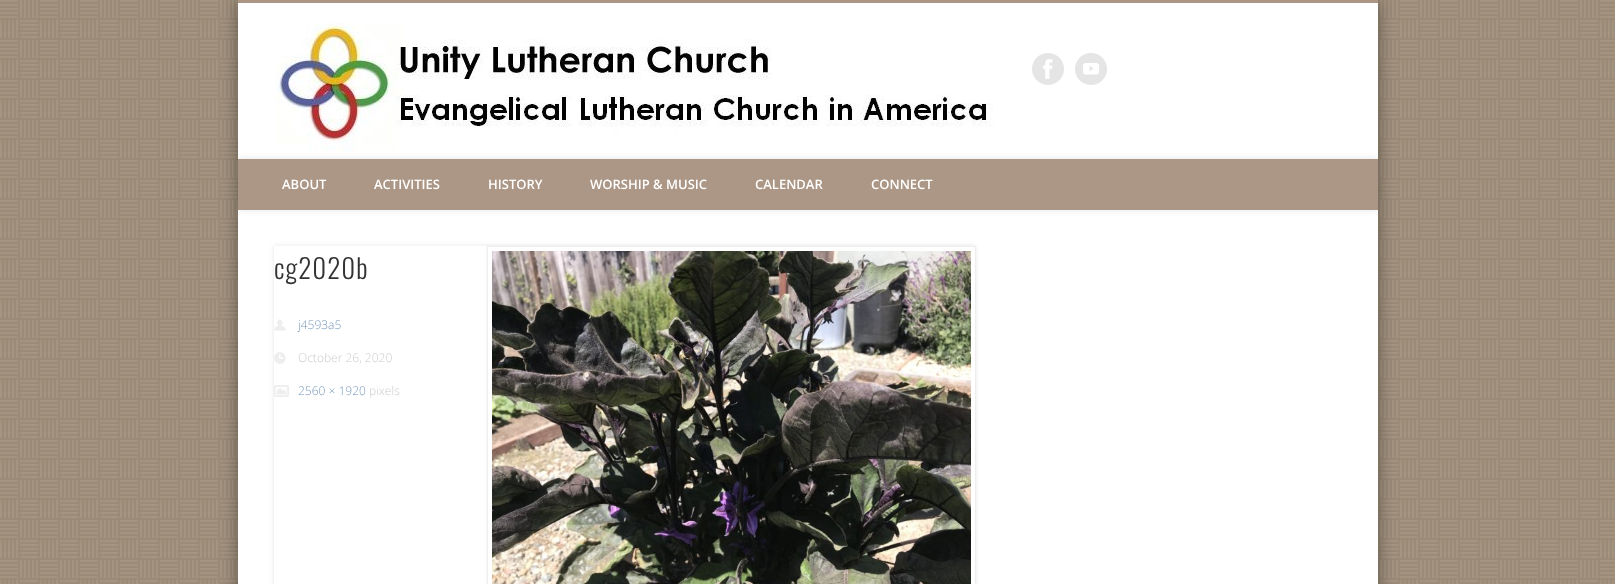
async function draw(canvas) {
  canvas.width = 1615;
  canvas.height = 584;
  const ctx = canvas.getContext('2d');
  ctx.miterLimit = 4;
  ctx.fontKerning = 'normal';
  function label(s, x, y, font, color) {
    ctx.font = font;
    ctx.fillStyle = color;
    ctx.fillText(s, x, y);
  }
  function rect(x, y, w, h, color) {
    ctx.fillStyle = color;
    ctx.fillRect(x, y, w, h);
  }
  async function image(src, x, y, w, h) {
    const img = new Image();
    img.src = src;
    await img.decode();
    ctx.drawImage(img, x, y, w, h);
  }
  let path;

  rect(0, 0, 1615, 584, '#fff');
  await image('assets/img1.png', 0, 0, 1615, 584);
  ctx.fillStyle = '#00000066';
  ctx.filter = 'blur(9px)';
  ctx.beginPath();
  ctx.rect(238, 0, 1140, 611);
  ctx.fill();
  ctx.filter = 'none';
  rect(238, 3, 1140, 581, '#fff');
  rect(238, 0, 1140, 3, '#ac9685');
  await image('assets/img2.png', 276, 23, 717, 128);
  await image('assets/img3.png', 1032, 53, 32, 32);
  await image('assets/img4.png', 1075, 53, 32, 32);
  ctx.save();
  ctx.beginPath();
  ctx.rect(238, 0, 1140, 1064);
  ctx.clip();
  ctx.fillStyle = '#0000001a';
  ctx.filter = 'blur(3.5px)';
  ctx.beginPath();
  ctx.rect(238, 159, 1140, 51);
  ctx.fill();
  ctx.filter = 'none';
  ctx.restore();
  rect(238, 159, 1140, 51, '#ac9685');
  label('ABOUT', 282, 189, '600 13px Open Sans', '#fff');
  label('ACTIVITIES', 374, 189, '600 13px Open Sans', '#fff');
  label('HISTORY', 488, 189, '600 13px Open Sans', '#fff');
  label('WORSHIP & MUSIC', 590, 189, '600 13px Open Sans', '#fff');
  label('CALENDAR', 755, 189, '600 13px Open Sans', '#fff');
  label('CONNECT', 871, 189, '600 13px Open Sans', '#fff');
  ctx.save();
  path = new Path2D('M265 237H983V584H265ZM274 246H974V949H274Z');
  ctx.clip(path, 'evenodd');
  ctx.fillStyle = '#0000001a';
  ctx.filter = 'blur(2.5px)';
  ctx.beginPath();
  ctx.rect(274, 246, 700, 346);
  ctx.fill();
  ctx.filter = 'none';
  ctx.restore();
  ctx.letterSpacing = '1px';
  label('cg2020b', 274, 279, '300 27px Oswald', '#333');
  await image('assets/img5.png', 274, 319, 12, 12);
  ctx.letterSpacing = '0px';
  label('j4593a5', 298, 329, '300 12px Open Sans', '#7597b9');
  await image('assets/img6.png', 274, 352, 12, 12);
  label('October 26, 2020', 298, 362, '300 12px Open Sans', '#ccc');
  await image('assets/img7.png', 274, 385, 15, 12);
  label('2560 × 1920', 298, 395, '300 12px Open Sans', '#7597b9');
  label('pixels', 369, 395, '300 12px Open Sans', '#ccc');
  ctx.fillStyle = '#eee';
  ctx.filter = 'blur(1.5px)';
  ctx.beginPath();
  ctx.rect(487, 246, 489, 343);
  ctx.fill();
  ctx.filter = 'none';
  ctx.fillStyle = '#fff';
  ctx.beginPath();
  ctx.rect(487.5, 246.5, 488, 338);
  ctx.fill();
  ctx.strokeStyle = '#eee';
  ctx.stroke();
  await image('assets/img8.png', 492, 251, 479, 333);
}

draw(document.querySelector('canvas'));
